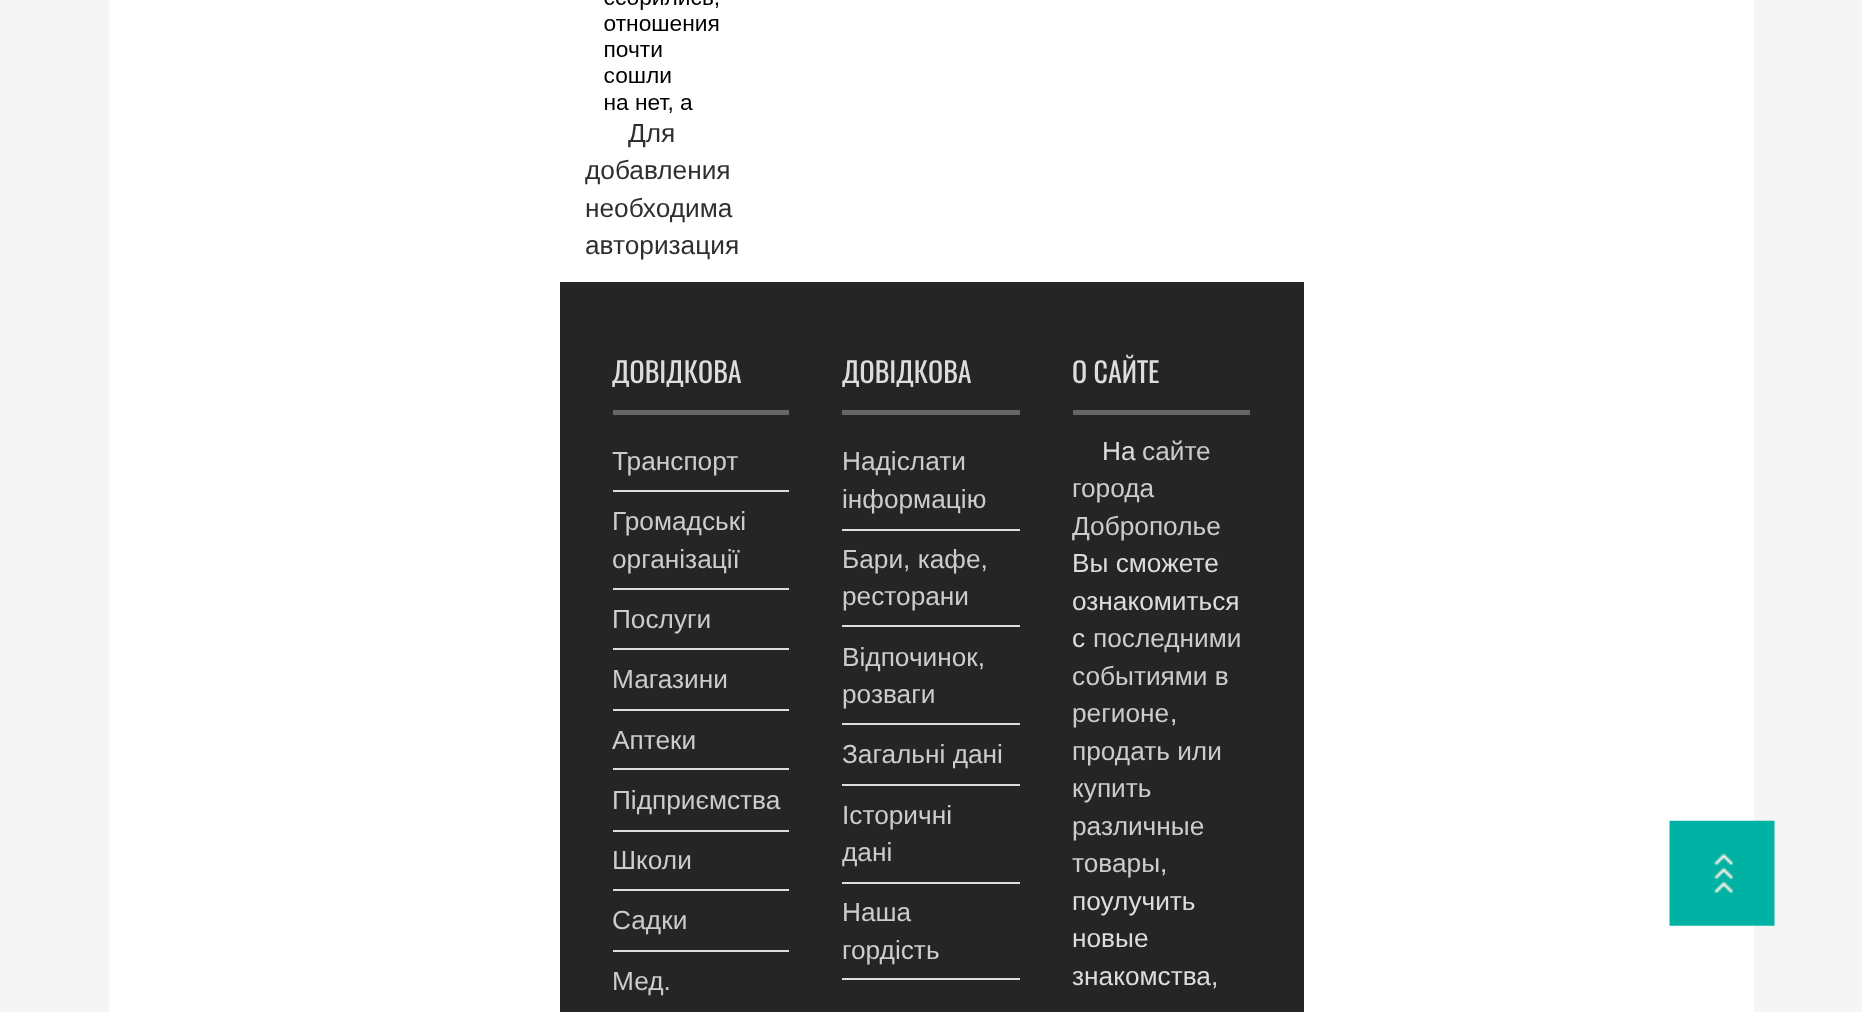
async function draw(canvas) {
  canvas.width = 1862;
  canvas.height = 1012;
  const ctx = canvas.getContext('2d');
  ctx.miterLimit = 4;
  ctx.fontKerning = 'normal';
  function label(s, x, y, font, color) {
    ctx.font = font;
    ctx.fillStyle = color;
    ctx.fillText(s, x, y);
  }
  function rect(x, y, w, h, color) {
    ctx.fillStyle = color;
    ctx.fillRect(x, y, w, h);
  }
  async function image(src, x, y, w, h) {
    const img = new Image();
    img.src = src;
    await img.decode();
    ctx.drawImage(img, x, y, w, h);
  }

  rect(0, 0, 1862, 1012, '#f5f5f5');
  rect(109, 0, 1645, 1012, '#fff');
  await image('assets/img1.png', 604, 0, 115, 113);
  label('Для', 628, 142, '26.25px Liberation Sans', '#2f2f2f');
  label('добавления', 585, 179, '26.25px Liberation Sans', '#2f2f2f');
  label('необходима', 585, 217, '26.25px Liberation Sans', '#2f2f2f');
  label('авторизация', 585, 254, '26.25px Liberation Sans', '#2f2f2f');
  rect(560, 282, 744, 730, '#252525');
  rect(613, 410, 176, 5, '#666');
  label('ДОВІДКОВА', 612, 383, '28px Oswald', '#ddd');
  rect(613, 490, 176, 2, '#ddd');
  label('Транспорт', 612, 470, '26.25px Liberation Sans', '#ccc');
  rect(613, 588, 176, 2, '#ddd');
  label('Громадські', 612, 530, '26.25px Liberation Sans', '#ccc');
  label('організації', 612, 568, '26.25px Liberation Sans', '#ccc');
  rect(613, 648, 176, 2, '#ddd');
  label('Послуги', 612, 628, '26.25px Liberation Sans', '#ccc');
  rect(613, 709, 176, 2, '#ddd');
  label('Магазини', 612, 688, '26.25px Liberation Sans', '#ccc');
  rect(613, 768, 176, 2, '#ddd');
  label('Аптеки', 612, 749, '26.25px Liberation Sans', '#ccc');
  rect(613, 830, 176, 2, '#ddd');
  label('Підприємства', 612, 809, '26.25px Liberation Sans', '#ccc');
  rect(613, 889, 176, 2, '#ddd');
  label('Школи', 612, 869, '26.25px Liberation Sans', '#ccc');
  rect(613, 950, 176, 2, '#ddd');
  label('Садки', 612, 929, '26.25px Liberation Sans', '#ccc');
  label('Мед.', 612, 990, '26.25px Liberation Sans', '#ccc');
  rect(842, 410, 178, 5, '#666');
  label('ДОВІДКОВА', 842, 383, '28px Oswald', '#ddd');
  rect(842, 529, 178, 2, '#ddd');
  label('Надіслати', 842, 470, '26.25px Liberation Sans', '#ccc');
  label('інформацію', 842, 508, '26.25px Liberation Sans', '#ccc');
  rect(842, 625, 178, 2, '#ddd');
  label('Бари, кафе,', 842, 568, '26.25px Liberation Sans', '#ccc');
  label('ресторани', 842, 605, '26.25px Liberation Sans', '#ccc');
  rect(842, 723, 178, 2, '#ddd');
  label('Відпочинок,', 842, 666, '26.25px Liberation Sans', '#ccc');
  label('розваги', 842, 703, '26.25px Liberation Sans', '#ccc');
  rect(842, 784, 178, 2, '#ddd');
  label('Загальні дані', 842, 763, '26.25px Liberation Sans', '#ccc');
  rect(842, 882, 178, 2, '#ddd');
  label('Історичні', 842, 824, '26.25px Liberation Sans', '#ccc');
  label('дані', 842, 861, '26.25px Liberation Sans', '#ccc');
  rect(842, 978, 178, 2, '#ddd');
  label('Наша', 842, 921, '26.25px Liberation Sans', '#ccc');
  label('гордість', 842, 959, '26.25px Liberation Sans', '#ccc');
  rect(1073, 410, 177, 5, '#666');
  label('О САЙТЕ', 1072, 383, '28px Oswald', '#ddd');
  label('На', 1102, 460, '26.25px Liberation Sans', '#ddd');
  label('сайте', 1142, 460, '26.25px Liberation Sans', '#ccc');
  label('города', 1072, 497, '26.25px Liberation Sans', '#ccc');
  label('Доброполье', 1072, 535, '26.25px Liberation Sans', '#ccc');
  label('Вы сможете', 1072, 572, '26.25px Liberation Sans', '#ddd');
  label('ознакомиться', 1072, 610, '26.25px Liberation Sans', '#ddd');
  label('с', 1072, 647, '26.25px Liberation Sans', '#ddd');
  label('последними', 1093, 647, '26.25px Liberation Sans', '#ccc');
  label('событиями в', 1072, 685, '26.25px Liberation Sans', '#ccc');
  label('регионе', 1072, 722, '26.25px Liberation Sans', '#ccc');
  label(',', 1170, 722, '26.25px Liberation Sans', '#ddd');
  label('продать или', 1072, 760, '26.25px Liberation Sans', '#ccc');
  label('купить', 1072, 797, '26.25px Liberation Sans', '#ccc');
  label('различные', 1072, 835, '26.25px Liberation Sans', '#ccc');
  label('товары', 1072, 872, '26.25px Liberation Sans', '#ccc');
  label(',', 1160, 872, '26.25px Liberation Sans', '#ddd');
  label('поулучить', 1072, 910, '26.25px Liberation Sans', '#ddd');
  label('новые', 1072, 947, '26.25px Liberation Sans', '#ddd');
  label('знакомства,', 1072, 985, '26.25px Liberation Sans', '#ddd');
  await image('assets/img2.png', 1669, 820, 106, 106);
}

draw(document.querySelector('canvas'));
